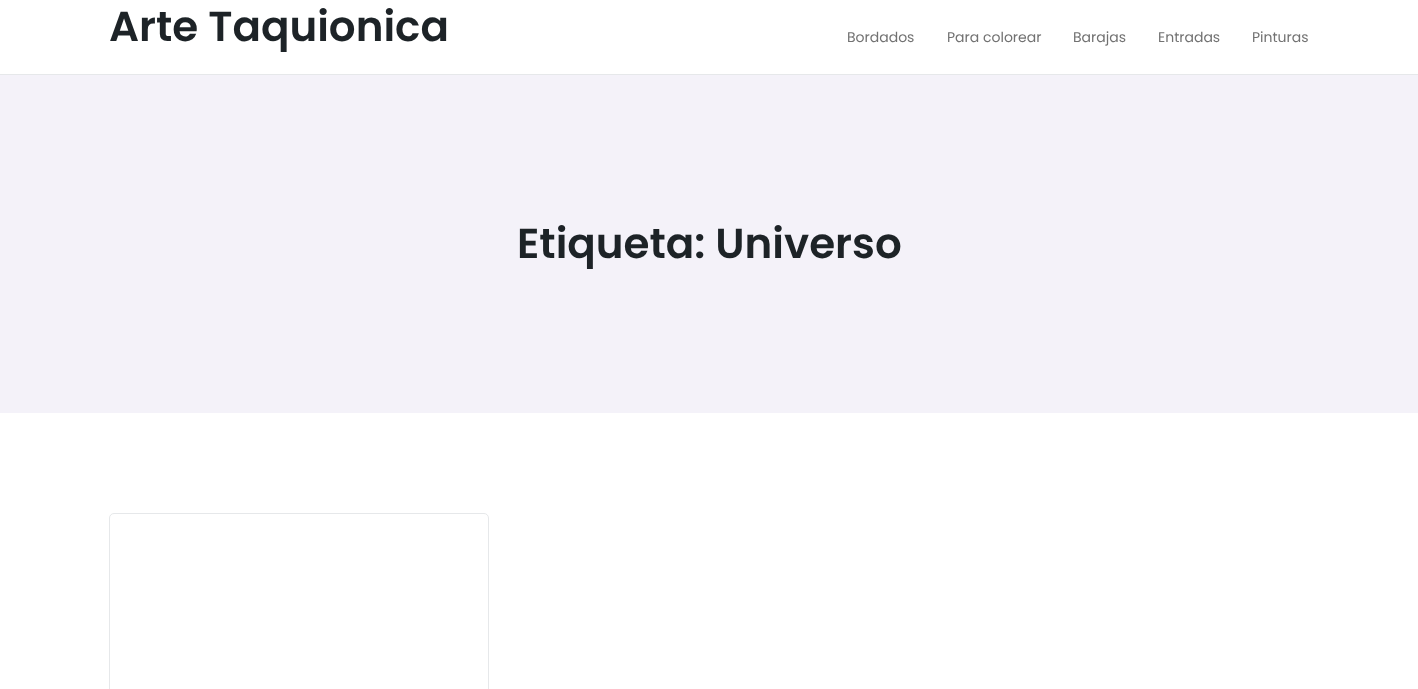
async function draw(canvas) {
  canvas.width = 1418;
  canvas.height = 689;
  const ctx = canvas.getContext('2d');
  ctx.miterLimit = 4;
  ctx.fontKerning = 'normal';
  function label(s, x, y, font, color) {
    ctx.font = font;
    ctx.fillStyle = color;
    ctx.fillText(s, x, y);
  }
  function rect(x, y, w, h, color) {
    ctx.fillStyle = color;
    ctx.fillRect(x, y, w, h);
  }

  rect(0, 0, 1418, 689, '#fff');
  rect(0, 74, 1418, 1, '#e6e8ea');
  label('Arte Taquionica', 109, 41, '600 42px Poppins', '#1d2327');
  label('Bordados', 847, 42, '14px Poppins', '#727272');
  label('Para colorear', 947, 42, '14px Poppins', '#727272');
  label('Barajas', 1073, 42, '14px Poppins', '#727272');
  label('Entradas', 1158, 42, '14px Poppins', '#727272');
  label('Pinturas', 1252, 42, '14px Poppins', '#727272');
  rect(0, 75, 1418, 338, '#f4f2f9');
  label('Etiqueta: Universo', 517, 258, '600 42px Poppins', '#1d2327');
  ctx.beginPath();
  ctx.roundRect(109.5, 513.5, 379, 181, 4.5);
  ctx.strokeStyle = '#e6e8ea';
  ctx.stroke();
}

draw(document.querySelector('canvas'));
